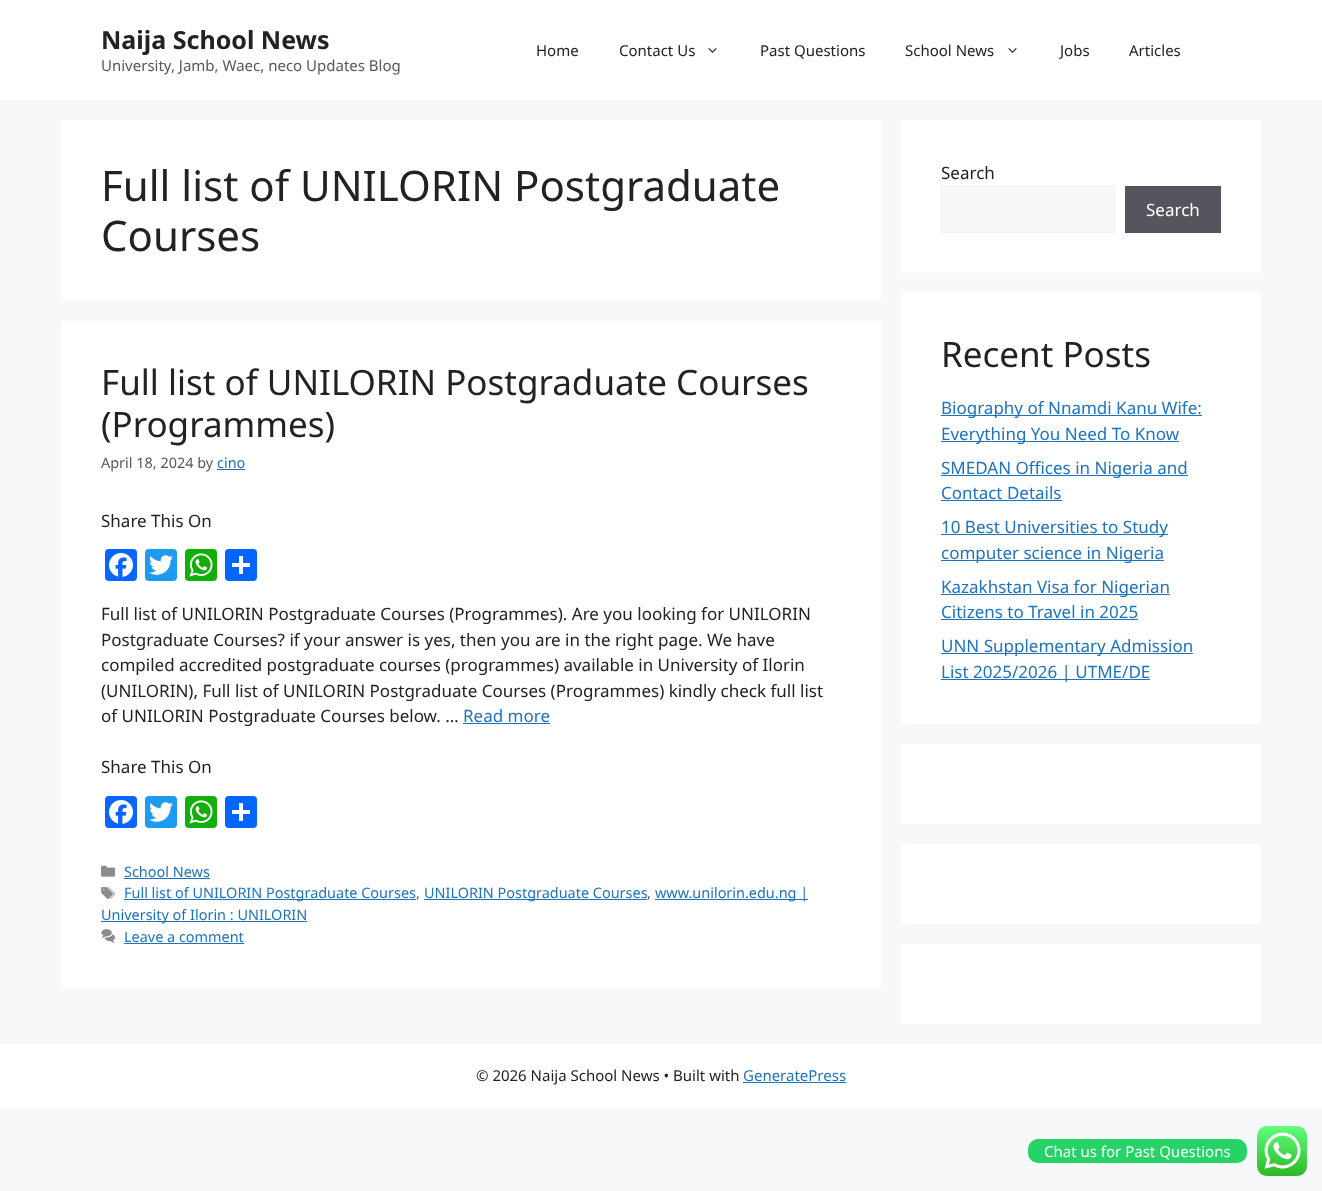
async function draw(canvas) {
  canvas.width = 1322;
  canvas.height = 1191;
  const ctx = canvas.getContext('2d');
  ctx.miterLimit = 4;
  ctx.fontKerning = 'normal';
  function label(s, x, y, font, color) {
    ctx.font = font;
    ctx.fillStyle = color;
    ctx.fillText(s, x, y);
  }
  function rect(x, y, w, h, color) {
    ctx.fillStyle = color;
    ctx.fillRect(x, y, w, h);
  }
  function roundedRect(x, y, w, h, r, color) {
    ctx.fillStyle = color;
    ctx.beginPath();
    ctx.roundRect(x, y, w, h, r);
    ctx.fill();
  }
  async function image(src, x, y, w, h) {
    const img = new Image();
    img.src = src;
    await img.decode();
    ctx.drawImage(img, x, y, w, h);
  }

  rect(0, 0, 1322, 1191, '#f7f8f9');
  rect(0, 0, 1322, 100, '#fff');
  label('Naija School News', 101, 49, 'bold 25px Noto Sans', '#222');
  label('University, Jamb, Waec, neco Updates Blog', 101, 71, '15px Noto Sans', '#575760');
  label('Home', 536, 56, '15px Noto Sans', '#222');
  label('Contact Us', 619, 56, '15px Noto Sans', '#222');
  await image('assets/img1.png', 708, 48, 9, 5);
  label('Past Questions', 760, 56, '15px Noto Sans', '#222');
  label('School News', 905, 56, '15px Noto Sans', '#222');
  await image('assets/img1.png', 1008, 48, 9, 5);
  label('Jobs', 1060, 56, '15px Noto Sans', '#222');
  label('Articles', 1129, 56, '15px Noto Sans', '#222');
  rect(61, 120, 820, 181, '#fff');
  label('Full list of UNILORIN Postgraduate', 101, 201, '42px Noto Sans', '#222');
  label('Courses', 101, 251, '42px Noto Sans', '#222');
  rect(61, 321, 820, 666, '#fff');
  label('Full list of UNILORIN Postgraduate Courses', 101, 395, '35px Noto Sans', '#222');
  label('(Programmes)', 101, 437, '35px Noto Sans', '#222');
  label('April 18, 2024 by', 101, 468, '14.45px Noto Sans', '#575760');
  label('cino', 217, 468, '14.45px Noto Sans', '#1e73be');
  rect(217, 469, 28, 1, '#1e73be');
  label('Share This On', 101, 527, '17px Noto Sans', '#222');
  roundedRect(105, 549, 32, 32, 4, '#0866ff');
  await image('assets/img2.png', 109, 553, 24, 24);
  roundedRect(145, 549, 32, 32, 4, '#1d9bf0');
  await image('assets/img3.png', 149, 555, 24, 20);
  roundedRect(185, 549, 32, 32, 4, '#12af0a');
  await image('assets/img4.png', 189, 553, 24, 24);
  roundedRect(225, 549, 32, 32, 4, '#0166ff');
  rect(239, 556, 4, 18, '#fff');
  rect(232, 563, 18, 4, '#fff');
  label('Full list of UNILORIN Postgraduate Courses (Programmes). Are you looking for UNILORIN', 101, 620, '17px Noto Sans', '#222');
  label('Postgraduate Courses? if your answer is yes, then you are in the right page. We have', 101, 646, '17px Noto Sans', '#222');
  label('compiled accredited postgraduate courses (programmes) available in University of Ilorin', 101, 671, '17px Noto Sans', '#222');
  label('(UNILORIN), Full list of UNILORIN Postgraduate Courses (Programmes) kindly check full list', 101, 697, '17px Noto Sans', '#222');
  label('of UNILORIN Postgraduate Courses below. …', 101, 722, '17px Noto Sans', '#222');
  label('Read more', 463, 722, '17px Noto Sans', '#1e73be');
  rect(463, 723, 87, 1, '#1e73be');
  label('Share This On', 101, 773, '17px Noto Sans', '#222');
  roundedRect(105, 796, 32, 32, 4, '#0866ff');
  await image('assets/img2.png', 109, 800, 24, 24);
  roundedRect(145, 796, 32, 32, 4, '#1d9bf0');
  await image('assets/img3.png', 149, 802, 24, 20);
  roundedRect(185, 796, 32, 32, 4, '#12af0a');
  await image('assets/img4.png', 189, 800, 24, 24);
  roundedRect(225, 796, 32, 32, 4, '#0166ff');
  rect(239, 803, 4, 18, '#fff');
  rect(232, 810, 18, 4, '#fff');
  await image('assets/img5.png', 101, 865, 14, 12);
  label('School News', 124, 877, '14.45px Noto Sans', '#1e73be');
  rect(124, 878, 86, 1, '#1e73be');
  await image('assets/img6.png', 101, 887, 14, 13);
  rect(124, 899, 292, 1, '#1e73be');
  label('Full list of UNILORIN Postgraduate Courses', 124, 898, '14.45px Noto Sans', '#1e73be');
  label(',', 416, 898, '14.45px Noto Sans', '#575760');
  rect(424, 899, 223, 1, '#1e73be');
  label('UNILORIN Postgraduate Courses', 424, 898, '14.45px Noto Sans', '#1e73be');
  label(',', 647, 898, '14.45px Noto Sans', '#575760');
  rect(655, 899, 153, 1, '#1e73be');
  label('www.unilorin.edu.ng |', 655, 898, '14.45px Noto Sans', '#1e73be');
  rect(101, 921, 206, 1, '#1e73be');
  label('University of Ilorin : UNILORIN', 101, 920, '14.45px Noto Sans', '#1e73be');
  await image('assets/img7.png', 101, 929, 14, 14);
  label('Leave a comment', 124, 942, '14.45px Noto Sans', '#1e73be');
  rect(124, 943, 120, 1, '#1e73be');
  rect(901, 120, 360, 153, '#fff');
  label('Search', 941, 179, '17px Noto Sans', '#222');
  ctx.fillStyle = '#f7f8f9';
  ctx.beginPath();
  ctx.rect(941.5, 186.5, 173, 46);
  ctx.fill();
  ctx.strokeStyle = '#f0f0f0';
  ctx.stroke();
  rect(1125, 186, 96, 47, '#55555e');
  label('Search', 1146, 216, '17px Noto Sans', '#fff');
  rect(901, 293, 360, 431, '#fff');
  label('Recent Posts', 941, 367, '35px Noto Sans', '#222');
  rect(941, 415, 261, 1, '#1e73be');
  label('Biography of Nnamdi Kanu Wife:', 941, 414, '17px Noto Sans', '#1e73be');
  rect(941, 441, 238, 1, '#1e73be');
  label('Everything You Need To Know', 941, 440, '17px Noto Sans', '#1e73be');
  rect(941, 475, 247, 1, '#1e73be');
  label('SMEDAN Offices in Nigeria and', 941, 474, '17px Noto Sans', '#1e73be');
  label('Contact Details', 941, 499, '17px Noto Sans', '#1e73be');
  rect(941, 500, 121, 1, '#1e73be');
  rect(941, 534, 227, 1, '#1e73be');
  label('10 Best Universities to Study', 941, 533, '17px Noto Sans', '#1e73be');
  rect(941, 560, 223, 1, '#1e73be');
  label('computer science in Nigeria', 941, 559, '17px Noto Sans', '#1e73be');
  rect(941, 594, 229, 1, '#1e73be');
  label('Kazakhstan Visa for Nigerian', 941, 593, '17px Noto Sans', '#1e73be');
  label('Citizens to Travel in 2025', 941, 618, '17px Noto Sans', '#1e73be');
  rect(941, 619, 197, 1, '#1e73be');
  rect(941, 653, 252, 1, '#1e73be');
  label('UNN Supplementary Admission', 941, 652, '17px Noto Sans', '#1e73be');
  rect(941, 679, 209, 1, '#1e73be');
  label('List 2025/2026 | UTME/DE', 941, 678, '17px Noto Sans', '#1e73be');
  rect(901, 744, 360, 80, '#fff');
  rect(901, 844, 360, 80, '#fff');
  rect(901, 944, 360, 80, '#fff');
  rect(0, 1044, 1322, 63, '#fff');
  label('© 2026 Naija School News • Built with', 476, 1081, '15px Noto Sans', '#222');
  label('GeneratePress', 743, 1081, '15px Noto Sans', '#1e73be');
  rect(743, 1082, 103, 1, '#1e73be');
  roundedRect(1028, 1139, 219, 24, 10, '#25d366');
  label('Chat us for Past Questions', 1044, 1157, '15px Noto Sans', '#fff');
  await image('assets/img8.png', 1257, 1126, 50, 50);
}

draw(document.querySelector('canvas'));
